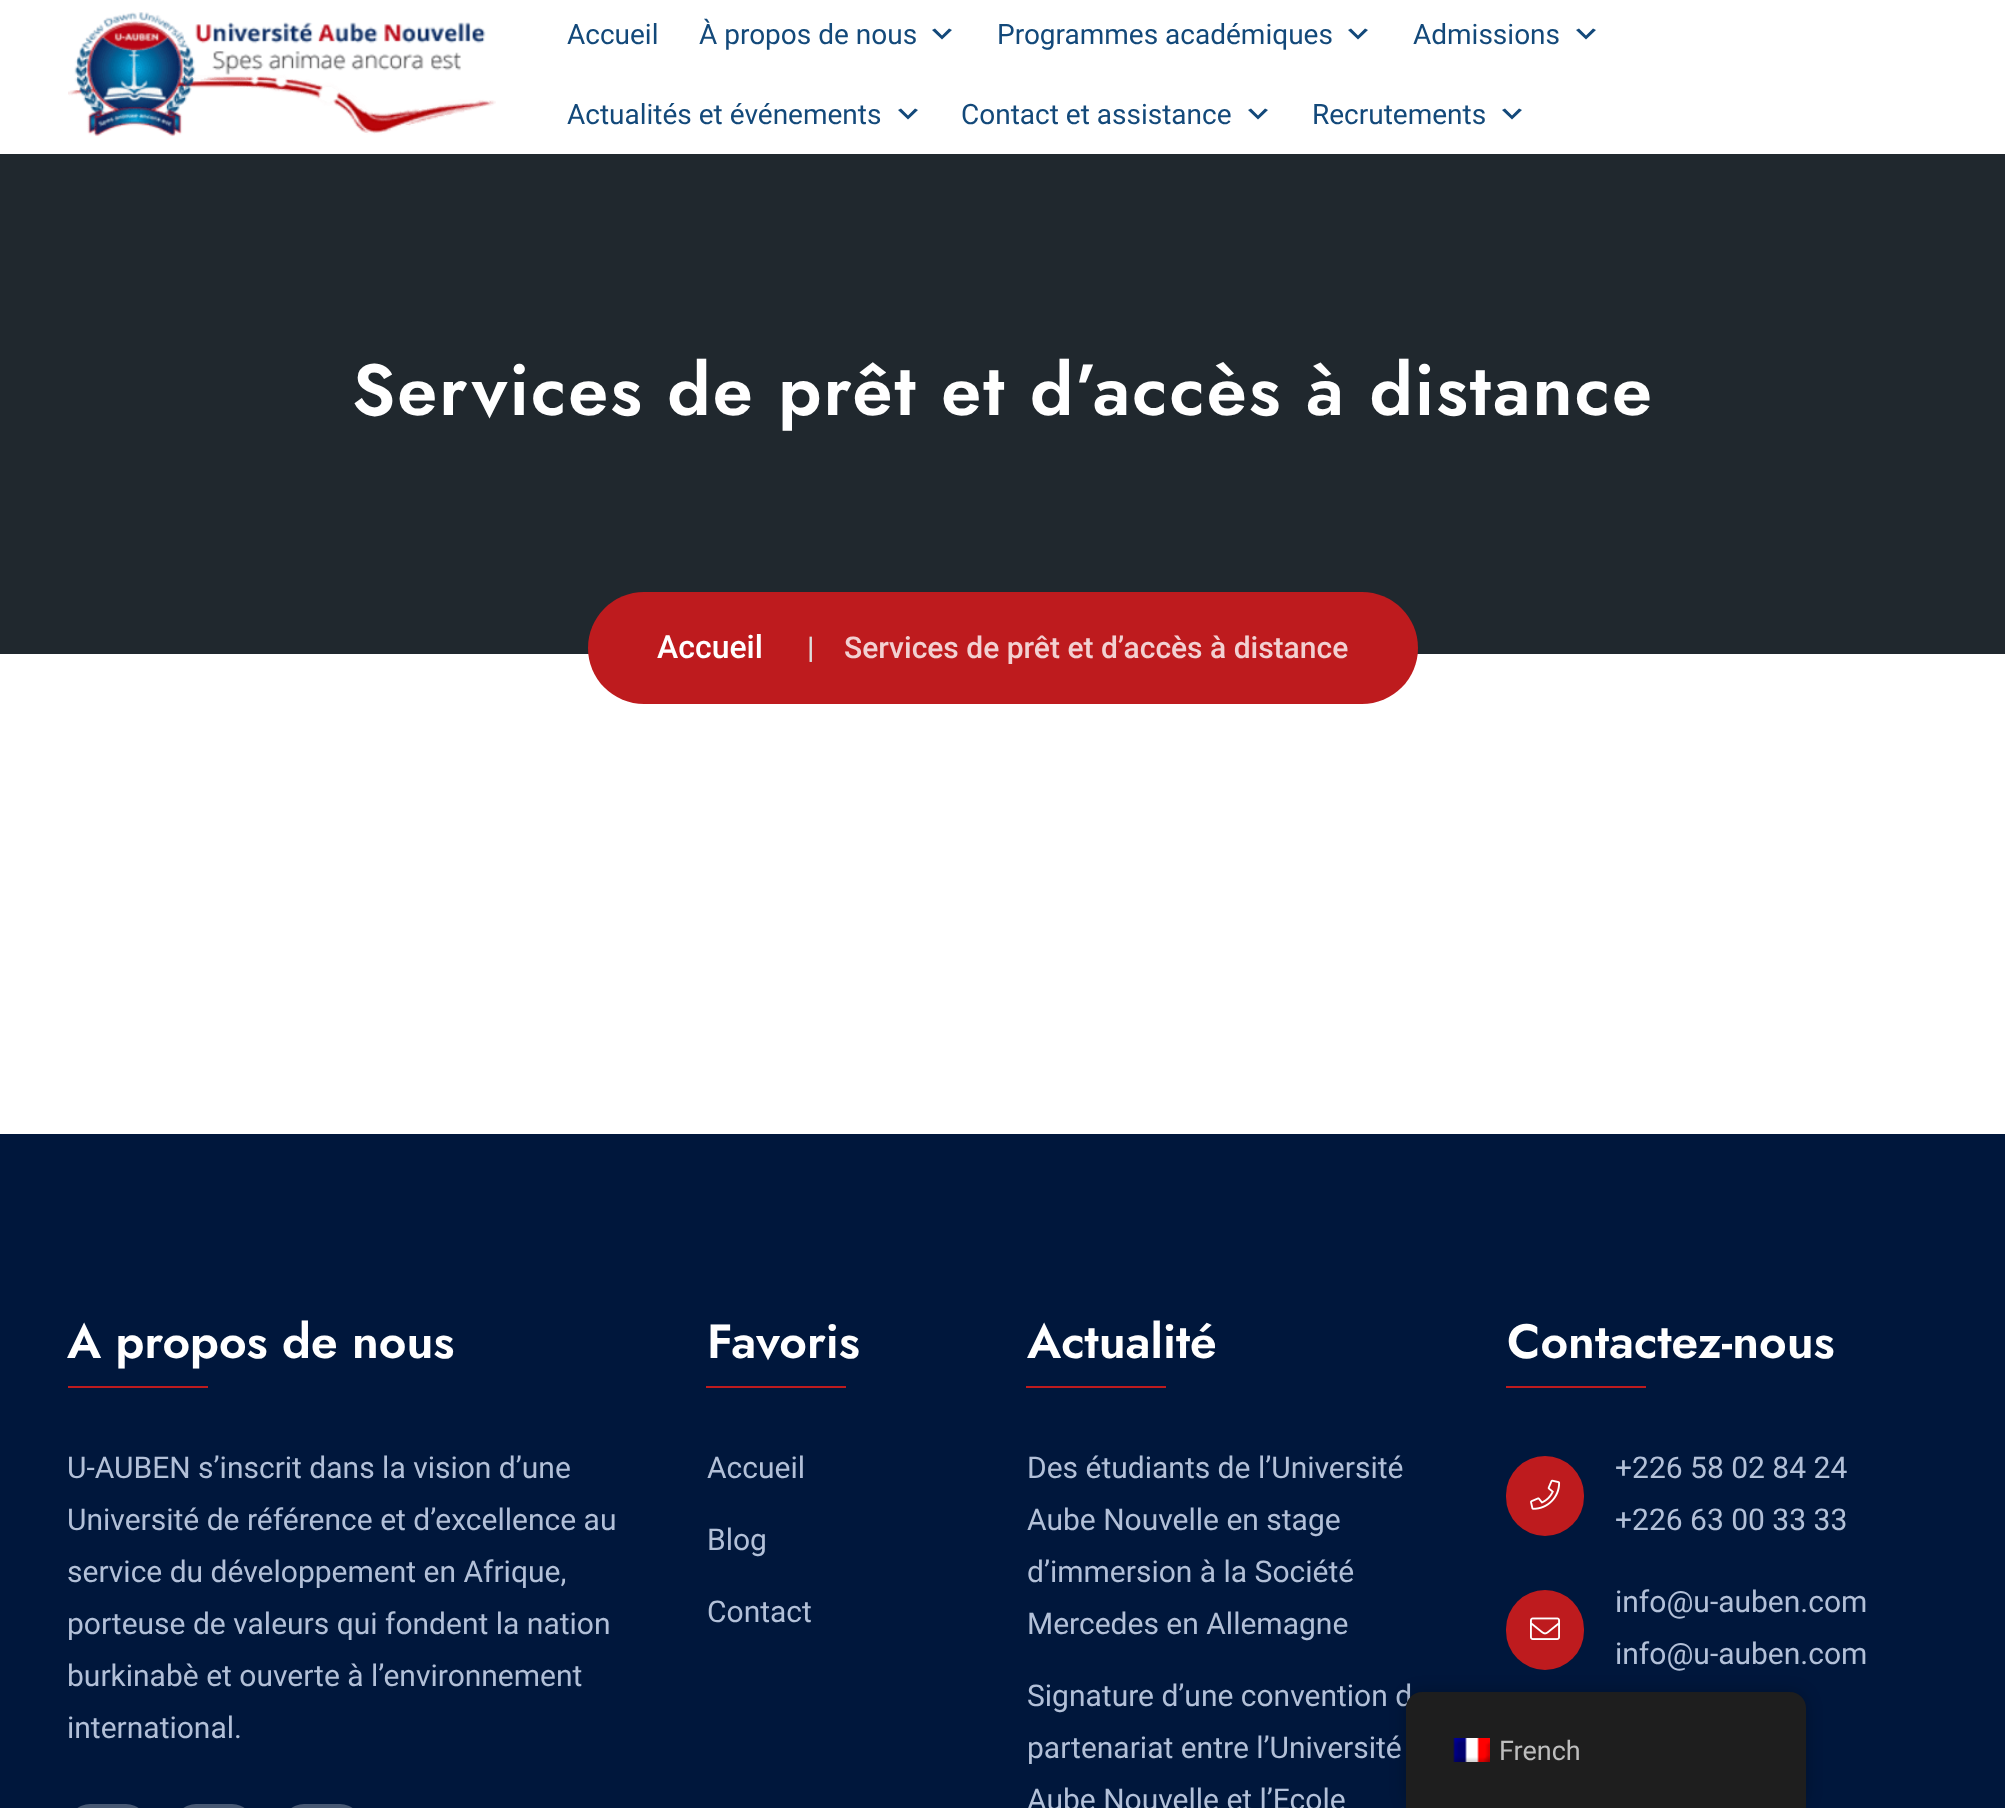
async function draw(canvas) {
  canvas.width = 2005;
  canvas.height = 1808;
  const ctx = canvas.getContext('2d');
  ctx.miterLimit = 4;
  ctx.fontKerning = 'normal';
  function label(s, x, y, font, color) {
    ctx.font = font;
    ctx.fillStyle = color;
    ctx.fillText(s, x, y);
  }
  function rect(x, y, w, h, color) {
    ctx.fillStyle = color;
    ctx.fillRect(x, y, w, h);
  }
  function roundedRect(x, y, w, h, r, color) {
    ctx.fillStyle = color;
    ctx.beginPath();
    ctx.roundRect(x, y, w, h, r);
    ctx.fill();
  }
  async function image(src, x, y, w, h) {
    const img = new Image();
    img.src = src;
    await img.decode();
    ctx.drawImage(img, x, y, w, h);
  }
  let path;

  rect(0, 0, 2005, 1808, '#fff');
  await image('assets/img1.png', 68, 12, 428, 125);
  label('Accueil', 567, 44, '28px Roboto', '#13497a');
  label('À propos de nous', 699, 44, '28px Roboto', '#13497a');
  path = new Path2D('M935 28.5L942 35.5L949 28.5L952 30L942 39.5L932 30Z');
  ctx.fill(path);
  label('Programmes académiques', 997, 44, '28px Roboto', '#13497a');
  path = new Path2D('M1351 28.5L1358 35.5L1365 28.5L1368 30L1358 39.5L1348 30Z');
  ctx.fill(path);
  label('Admissions', 1413, 44, '28px Roboto', '#13497a');
  path = new Path2D('M1579 28.5L1586 35.5L1593 28.5L1596 30L1586 39.5L1576 30Z');
  ctx.fill(path);
  label('Actualités et événements', 567, 124, '28px Roboto', '#13497a');
  path = new Path2D('M901 108.5L908 115.5L915 108.5L918 110L908 119.5L898 110Z');
  ctx.fill(path);
  label('Contact et assistance', 961, 124, '28px Roboto', '#13497a');
  path = new Path2D('M1251 108.5L1258 115.5L1265 108.5L1268 110L1258 119.5L1248 110Z');
  ctx.fill(path);
  label('Recrutements', 1312, 124, '28px Roboto', '#13497a');
  path = new Path2D('M1505 108.5L1512 115.5L1519 108.5L1522 110L1512 119.5L1502 110Z');
  ctx.fill(path);
  rect(0, 154, 2005, 500, '#20282e');
  ctx.letterSpacing = '2px';
  label('Services de prêt et d’accès à distance', 352, 415, '600 72px Jost', '#fff');
  roundedRect(588, 592, 830, 112, 56, '#be1b1e');
  ctx.letterSpacing = '0px';
  label('Accueil', 657, 658, '500 32px Roboto', '#fff');
  label('|', 807, 658, '500 30px Roboto', '#ddd');
  label('Services de prêt et d’accès à distance', 844, 658, '500 30px Roboto', '#f2d1d2');
  rect(0, 1134, 2005, 674, '#00173c');
  label('A propos de nous', 67, 1358, '600 48px Jost', '#fff');
  rect(68, 1386, 140, 2, '#be1b1e');
  label('U-AUBEN s’inscrit dans la vision d’une', 67, 1478, '30px Roboto', '#b2c0d8');
  label('Université de référence et d’excellence au', 67, 1530, '30px Roboto', '#b2c0d8');
  label('service du développement en Afrique,', 67, 1582, '30px Roboto', '#b2c0d8');
  label('porteuse de valeurs qui fondent la nation', 67, 1634, '30px Roboto', '#b2c0d8');
  label('burkinabè et ouverte à l’environnement', 67, 1686, '30px Roboto', '#b2c0d8');
  label('international.', 67, 1738, '30px Roboto', '#b2c0d8');
  roundedRect(68, 1804, 80, 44, 40, '#475873');
  roundedRect(174, 1804, 80, 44, 40, '#475873');
  roundedRect(282, 1804, 80, 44, 40, '#475873');
  label('Favoris', 707, 1358, '600 48px Jost', '#fff');
  rect(706, 1386, 140, 2, '#be1b1e');
  label('Accueil', 707, 1478, '30px Roboto', '#b2c0d8');
  label('Blog', 707, 1550, '30px Roboto', '#b2c0d8');
  label('Contact', 707, 1622, '30px Roboto', '#b2c0d8');
  label('Actualité', 1027, 1358, '600 48px Jost', '#fff');
  rect(1026, 1386, 140, 2, '#be1b1e');
  label('Des étudiants de l’Université', 1027, 1478, '30px Roboto', '#b2c0d8');
  label('Aube Nouvelle en stage', 1027, 1530, '30px Roboto', '#b2c0d8');
  label('d’immersion à la Société', 1027, 1582, '30px Roboto', '#b2c0d8');
  label('Mercedes en Allemagne', 1027, 1634, '30px Roboto', '#b2c0d8');
  label('Signature d’une convention d', 1027, 1706, '30px Roboto', '#b2c0d8');
  label('partenariat entre l’Université', 1027, 1758, '30px Roboto', '#b2c0d8');
  label('Aube Nouvelle et l’Ecole', 1027, 1810, '30px Roboto', '#b2c0d8');
  label('Contactez-nous', 1507, 1358, '600 48px Jost', '#fff');
  rect(1506, 1386, 140, 2, '#be1b1e');
  roundedRect(1506, 1456, 78, 80, 39, '#be1b1e');
  await image('assets/img2.png', 1530, 1479, 31, 31);
  label('+226 58 02 84 24', 1615, 1478, '30px Roboto', '#b2c0d8');
  label('+226 63 00 33 33', 1615, 1530, '30px Roboto', '#b2c0d8');
  roundedRect(1506, 1590, 78, 80, 39, '#be1b1e');
  await image('assets/img3.png', 1530, 1617, 30, 23);
  label('info@u-auben.com', 1615, 1612, '30px Roboto', '#b2c0d8');
  label('info@u-auben.com', 1615, 1664, '30px Roboto', '#b2c0d8');
  ctx.fillStyle = '#00000040';
  ctx.filter = 'blur(8px)';
  ctx.beginPath();
  ctx.roundRect(1406, 1692, 400, 116, 16);
  ctx.fill();
  ctx.filter = 'none';
  ctx.fillStyle = '#1e1e1e';
  ctx.beginPath();
  ctx.roundRect(1406, 1692, 400, 116, [16, 16, 0, 0]);
  ctx.fill();
  await image('assets/img4.png', 1453, 1738, 37, 24);
  label('French', 1499, 1760, '27px Roboto', '#bdbdbd');
}

draw(document.querySelector('canvas'));
